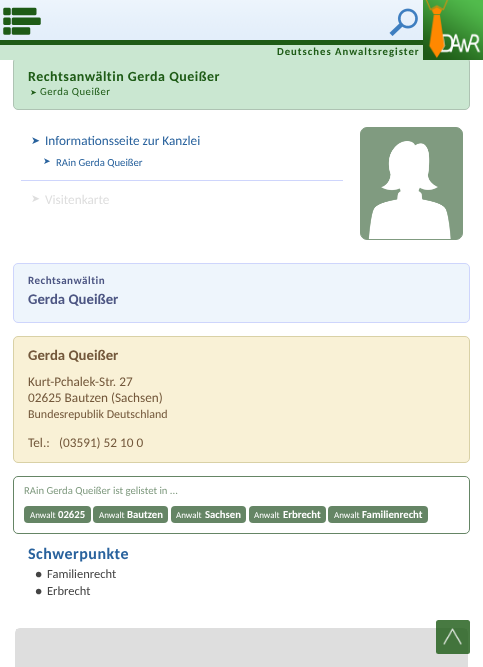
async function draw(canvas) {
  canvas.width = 483;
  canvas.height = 667;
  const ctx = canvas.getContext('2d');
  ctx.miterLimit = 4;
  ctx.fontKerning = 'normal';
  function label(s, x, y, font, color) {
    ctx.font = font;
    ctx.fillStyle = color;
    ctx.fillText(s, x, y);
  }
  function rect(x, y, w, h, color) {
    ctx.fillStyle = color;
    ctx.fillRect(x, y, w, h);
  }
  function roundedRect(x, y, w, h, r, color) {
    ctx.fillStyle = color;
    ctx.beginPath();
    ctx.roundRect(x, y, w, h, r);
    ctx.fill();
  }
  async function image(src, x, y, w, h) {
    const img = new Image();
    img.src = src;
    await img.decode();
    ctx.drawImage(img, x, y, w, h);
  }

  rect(0, 0, 483, 667, '#fff');
  await image('assets/img1.png', 0, 0, 423, 40);
  await image('assets/img2.png', 3, 7, 38, 28);
  await image('assets/img3.png', 389, 8, 29, 28);
  ctx.fillStyle = '#cae7d1';
  ctx.beginPath();
  ctx.roundRect(13.5, 57.5, 456, 52, 4.5);
  ctx.fill();
  ctx.strokeStyle = '#aec3b3';
  ctx.stroke();
  await image('assets/img4.png', 423, 0, 60, 60);
  rect(0, 45, 423, 15, '#cae7d1');
  rect(0, 40, 423, 5, '#1e5b16');
  ctx.letterSpacing = '1px';
  label('Deutsches Anwaltsregister', 277, 55, 'bold 10.7px Carlito', '#1e5b16');
  ctx.letterSpacing = '0.5px';
  label('Rechtsanwältin Gerda Queißer', 28, 81, 'bold 14px Carlito', '#1e5b16');
  label('➤', 30, 95, '8px DejaVu Sans', '#1e5b16');
  label('Gerda Queißer', 40, 95, '10.7px Carlito', '#1e5b16');
  ctx.fillStyle = '#809b80';
  ctx.beginPath();
  ctx.roundRect(360.5, 127.5, 102, 112, 6.5);
  ctx.fill();
  ctx.strokeStyle = '#809b80';
  ctx.stroke();
  await image('assets/img5.png', 368, 141, 83, 98);
  rect(21, 180, 322, 1, '#ced5fc');
  ctx.letterSpacing = '0px';
  label('➤', 31, 144, '10.7px DejaVu Sans', '#29629d');
  label('Informationsseite zur Kanzlei', 45, 145, '13.25px Carlito', '#29629d');
  label('➤', 43, 164, '9px DejaVu Sans', '#29629d');
  label('RAin Gerda Queißer', 56, 166, '10.7px Carlito', '#29629d');
  label('➤', 31, 202, '10.7px DejaVu Sans', '#dedede');
  label('Visitenkarte', 45, 204, '13.25px Carlito', '#dedede');
  ctx.fillStyle = '#eef5fc';
  ctx.beginPath();
  ctx.roundRect(13.5, 263.5, 456, 59, 4.5);
  ctx.fill();
  ctx.strokeStyle = '#ced5fc';
  ctx.stroke();
  ctx.letterSpacing = '0.5px';
  label('Rechtsanwältin', 28, 284, 'bold 11px Carlito', '#4d5683');
  ctx.letterSpacing = '0px';
  label('Gerda Queißer', 28, 304, 'bold 14.75px Carlito', '#4d5683');
  ctx.fillStyle = '#f9f1d6';
  ctx.beginPath();
  ctx.roundRect(13.5, 336.5, 456, 126, 4.5);
  ctx.fill();
  ctx.strokeStyle = '#d9d1a6';
  ctx.stroke();
  label('Gerda Queißer', 28, 360, 'bold 14.75px Carlito', '#73583b');
  label('Kurt-Pchalek-Str. 27', 28, 386, '13.25px Carlito', '#73583b');
  label('02625 Bautzen (Sachsen)', 28, 402, '13.25px Carlito', '#73583b');
  label('Bundesrepublik Deutschland', 28, 418, '12px Carlito', '#73583b');
  label('Tel.:', 28, 447, '13.25px Carlito', '#73583b');
  label('(03591) 52 10 0', 59, 447, '13.25px Carlito', '#73583b');
  ctx.beginPath();
  ctx.roundRect(13.5, 476.5, 456, 57, 4.5);
  ctx.strokeStyle = '#658565';
  ctx.stroke();
  label('RAin Gerda Queißer ist gelistet in ...', 24, 494, '10.7px Carlito', '#809b80');
  roundedRect(24, 506, 67, 17, 4, '#658565');
  label('Anwalt', 30, 518, '9px Carlito', '#fff');
  label('02625', 58, 518, 'bold 10.7px Carlito', '#fff');
  roundedRect(93, 506, 75, 17, 4, '#658565');
  label('Anwalt', 99, 518, '9px Carlito', '#fff');
  label('Bautzen', 127, 518, 'bold 10.7px Carlito', '#fff');
  roundedRect(171, 506, 75, 17, 4, '#658565');
  label('Anwalt', 176, 518, '9px Carlito', '#fff');
  label('Sachsen', 205, 518, 'bold 10.7px Carlito', '#fff');
  roundedRect(249, 506, 77, 17, 4, '#658565');
  label('Anwalt', 254, 518, '9px Carlito', '#fff');
  label('Erbrecht', 283, 518, 'bold 10.7px Carlito', '#fff');
  roundedRect(328, 506, 100, 17, 4, '#658565');
  label('Anwalt', 334, 518, '9px Carlito', '#fff');
  label('Familienrecht', 362, 518, 'bold 10.7px Carlito', '#fff');
  ctx.letterSpacing = '0.5px';
  label('Schwerpunkte', 28, 559, 'bold 16px Carlito', '#29629d');
  ctx.letterSpacing = '0px';
  label('●', 35, 578, '12px Carlito', '#444');
  label('Familienrecht', 47, 578, '12.5px Carlito', '#444');
  label('●', 35, 595, '12px Carlito', '#444');
  label('Erbrecht', 47, 595, '12.5px Carlito', '#444');
  ctx.beginPath();
  ctx.roundRect(15.5, 628.5, 452, 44, 4.5);
  ctx.strokeStyle = '#dedede';
  ctx.stroke();
  rect(16, 629, 451, 38, '#dedede');
  roundedRect(436, 620, 34, 34, 2.5, '#1e5b16cf');
  await image('assets/img6.png', 443, 628, 19, 17);
}

draw(document.querySelector('canvas'));
